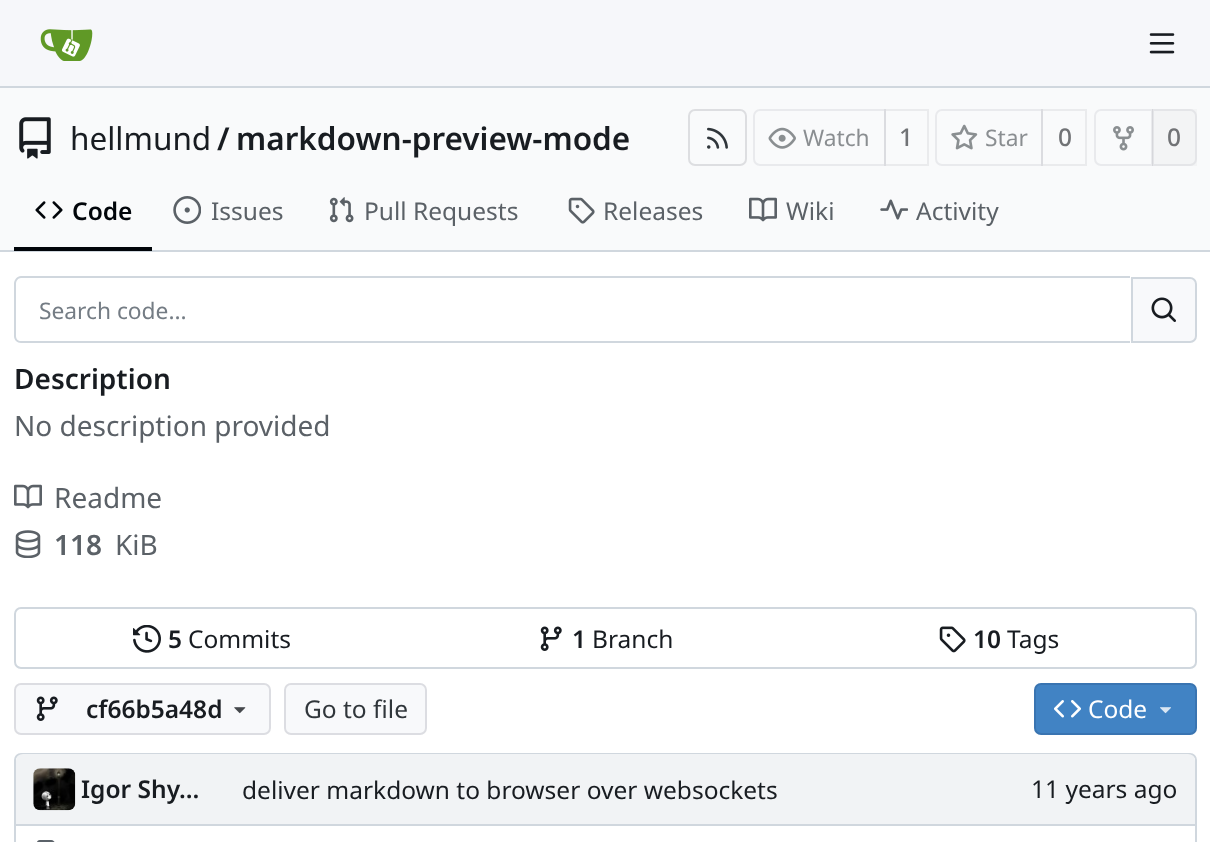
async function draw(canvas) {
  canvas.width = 1210;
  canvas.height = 842;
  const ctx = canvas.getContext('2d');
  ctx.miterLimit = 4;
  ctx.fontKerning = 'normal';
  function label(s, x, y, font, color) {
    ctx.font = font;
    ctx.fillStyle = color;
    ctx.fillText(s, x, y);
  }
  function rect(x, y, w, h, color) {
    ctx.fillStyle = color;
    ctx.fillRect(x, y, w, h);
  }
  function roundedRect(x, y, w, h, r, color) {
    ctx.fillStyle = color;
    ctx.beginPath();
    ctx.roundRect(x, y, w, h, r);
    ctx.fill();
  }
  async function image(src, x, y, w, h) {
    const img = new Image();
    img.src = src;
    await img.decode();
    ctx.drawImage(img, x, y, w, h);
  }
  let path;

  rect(0, 0, 1210, 842, '#fff');
  rect(0, 0, 1210, 86, '#f6f7fa');
  rect(0, 86, 1210, 2, '#d0d7de');
  await image('assets/img1.png', 40, 29, 53, 32);
  await image('assets/img2.png', 1149, 33, 26, 21);
  rect(0, 88, 1210, 162, '#f9fafb');
  await image('assets/img3.png', 19, 117, 32, 42);
  label('hellmund', 70, 150, '31.5px Noto Sans', '#181c21');
  label('/', 217, 150, '600 31.5px Noto Sans', '#181c21');
  label('markdown-preview-mode', 236, 150, '600 31.5px Noto Sans', '#181c21');
  ctx.beginPath();
  ctx.roundRect(689, 110, 57, 55, 6);
  ctx.strokeStyle = '#dddee1';
  ctx.lineWidth = 2;
  ctx.stroke();
  await image('assets/img4.png', 707, 127, 21, 22);
  ctx.beginPath();
  ctx.roundRect(754, 110, 131, 55, [6, 0, 0, 6]);
  ctx.strokeStyle = '#e9eaed';
  ctx.stroke();
  await image('assets/img5.png', 768, 127, 28, 22);
  label('Watch', 803, 146, '22.75px Noto Sans', '#8a8e91');
  ctx.strokeStyle = '#0000170f';
  ctx.strokeRect(885, 110, 43, 55);
  label('1', 899, 146, '500 24.5px Noto Sans', '#717376');
  ctx.beginPath();
  ctx.roundRect(936, 110, 106, 55, [6, 0, 0, 6]);
  ctx.strokeStyle = '#e9eaed';
  ctx.stroke();
  await image('assets/img6.png', 951, 124, 27, 26);
  label('Star', 985, 146, '22.75px Noto Sans', '#8a8e91');
  ctx.strokeStyle = '#0000170f';
  ctx.strokeRect(1042, 110, 44, 55);
  label('0', 1058, 146, '500 24.5px Noto Sans', '#717376');
  ctx.beginPath();
  ctx.roundRect(1095, 110, 57, 55, [6, 0, 0, 6]);
  ctx.strokeStyle = '#e9eaed';
  ctx.stroke();
  await image('assets/img7.png', 1113, 126, 21, 25);
  rect(1152, 109, 45, 57, '#7071710a');
  ctx.beginPath();
  ctx.roundRect(1153, 110, 43, 55, [0, 6, 6, 0]);
  ctx.strokeStyle = '#70717e1c';
  ctx.stroke();
  label('0', 1167, 146, '500 24.5px Noto Sans', '#717376');
  rect(0, 250, 1210, 2, '#d0d7de');
  rect(14, 247, 138, 4, '#01050a');
  await image('assets/img8.png', 35, 201, 28, 18);
  label('Code', 72, 220, '600 24.5px Noto Sans', '#01050a');
  await image('assets/img9.png', 173, 196, 28, 28);
  label('Issues', 211, 220, '24.5px Noto Sans', '#5b6167');
  await image('assets/img10.png', 329, 197, 25, 26);
  label('Pull Requests', 364, 220, '24.5px Noto Sans', '#5b6167');
  await image('assets/img11.png', 568, 197, 27, 27);
  label('Releases', 603, 220, '24.5px Noto Sans', '#5b6167');
  await image('assets/img12.png', 749, 197, 28, 25);
  label('Wiki', 786, 220, '24.5px Noto Sans', '#5b6167');
  await image('assets/img13.png', 880, 199, 28, 21);
  label('Activity', 916, 220, '24.5px Noto Sans', '#5b6167');
  ctx.fillStyle = '#d0d7de';
  path = new Path2D('M21 276H1130V343H21C17 343 14 340 14 336V284C14 280 17 276 21 276ZM21 278H1130V341H21C18 341 16 339 16 336V284C16 281 18 278 21 278Z');
  ctx.fill(path, 'evenodd');
  label('Search code...', 39, 319, '22.75px Noto Sans', '#747c84');
  ctx.fillStyle = '#f8f9fb';
  ctx.beginPath();
  ctx.roundRect(1132, 278, 64, 64, [0, 6, 6, 0]);
  ctx.fill();
  ctx.strokeStyle = '#d0d7de';
  ctx.stroke();
  await image('assets/img14.png', 1151, 297, 25, 25);
  label('Description', 14, 389, '600 28px Noto Sans', '#181c21');
  label('No description provided', 14, 436, '28px Noto Sans', '#5b6167');
  await image('assets/img15.png', 14, 484, 28, 25);
  label('Readme', 54, 508, '28px Noto Sans', '#5b6167');
  await image('assets/img16.png', 15, 530, 26, 28);
  label('118', 54, 555, '600 28px Noto Sans', '#5b6167');
  label('KiB', 115, 555, '28px Noto Sans', '#5b6167');
  ctx.beginPath();
  ctx.roundRect(15, 608, 1181, 60, 6);
  ctx.stroke();
  await image('assets/img17.png', 133, 625, 28, 28);
  label('5', 168, 648, '600 24.5px Noto Sans', '#181c21');
  label('Commits', 188, 648, '24.5px Noto Sans', '#181c21');
  await image('assets/img18.png', 540, 626, 22, 25);
  label('1', 572, 648, '600 24.5px Noto Sans', '#181c21');
  label('Branch', 592, 648, '24.5px Noto Sans', '#181c21');
  await image('assets/img19.png', 939, 626, 27, 27);
  label('10', 973, 648, '600 24.5px Noto Sans', '#181c21');
  label('Tags', 1007, 648, '24.5px Noto Sans', '#181c21');
  roundedRect(14, 683, 257, 52, 7, '#f8f9fb');
  ctx.beginPath();
  ctx.roundRect(15, 684, 255, 50, 6);
  ctx.strokeStyle = '#0000171c';
  ctx.stroke();
  await image('assets/img20.png', 36, 696, 22, 25);
  label('cf66b5a48d', 86, 718, '600 24.5px Noto Sans', '#181c21');
  await image('assets/img21.png', 234, 707, 12, 7);
  roundedRect(284, 683, 143, 52, 7, '#f8f9fb');
  ctx.beginPath();
  ctx.roundRect(285, 684, 141, 50, 6);
  ctx.stroke();
  label('Go to file', 304, 718, '24.5px Noto Sans', '#30363b');
  roundedRect(1034, 683, 163, 52, 7, '#4183c4');
  ctx.beginPath();
  ctx.roundRect(1035, 684, 161, 50, 6);
  ctx.stroke();
  await image('assets/img22.png', 1054, 700, 27, 18);
  label('Code', 1088, 718, '24.5px Noto Sans', '#fff');
  await image('assets/img23.png', 1160, 707, 11, 7);
  ctx.beginPath();
  ctx.roundRect(15, 754, 1181, 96, 6);
  ctx.strokeStyle = '#d0d7de';
  ctx.stroke();
  ctx.fillStyle = '#f1f3f5';
  ctx.beginPath();
  ctx.roundRect(16, 754, 1179, 70, [7, 7, 0, 0]);
  ctx.fill();
  await image('assets/img24.png', 33, 768, 43, 43);
  label('Igor Shy…', 81, 798, '600 24.5px Noto Sans', '#181c21');
  label('deliver markdown to browser over websockets', 242, 799, '24.5px Noto Sans', '#181c21');
  label('11 years ago', 1031, 798, '24.5px Noto Sans', '#181c21');
  rect(16, 824, 997, 2, '#d0d7de');
  await image('assets/img25.png', 37, 840, 18, 2);
  rect(1013, 824, 182, 2, '#d0d7de');
}

draw(document.querySelector('canvas'));
